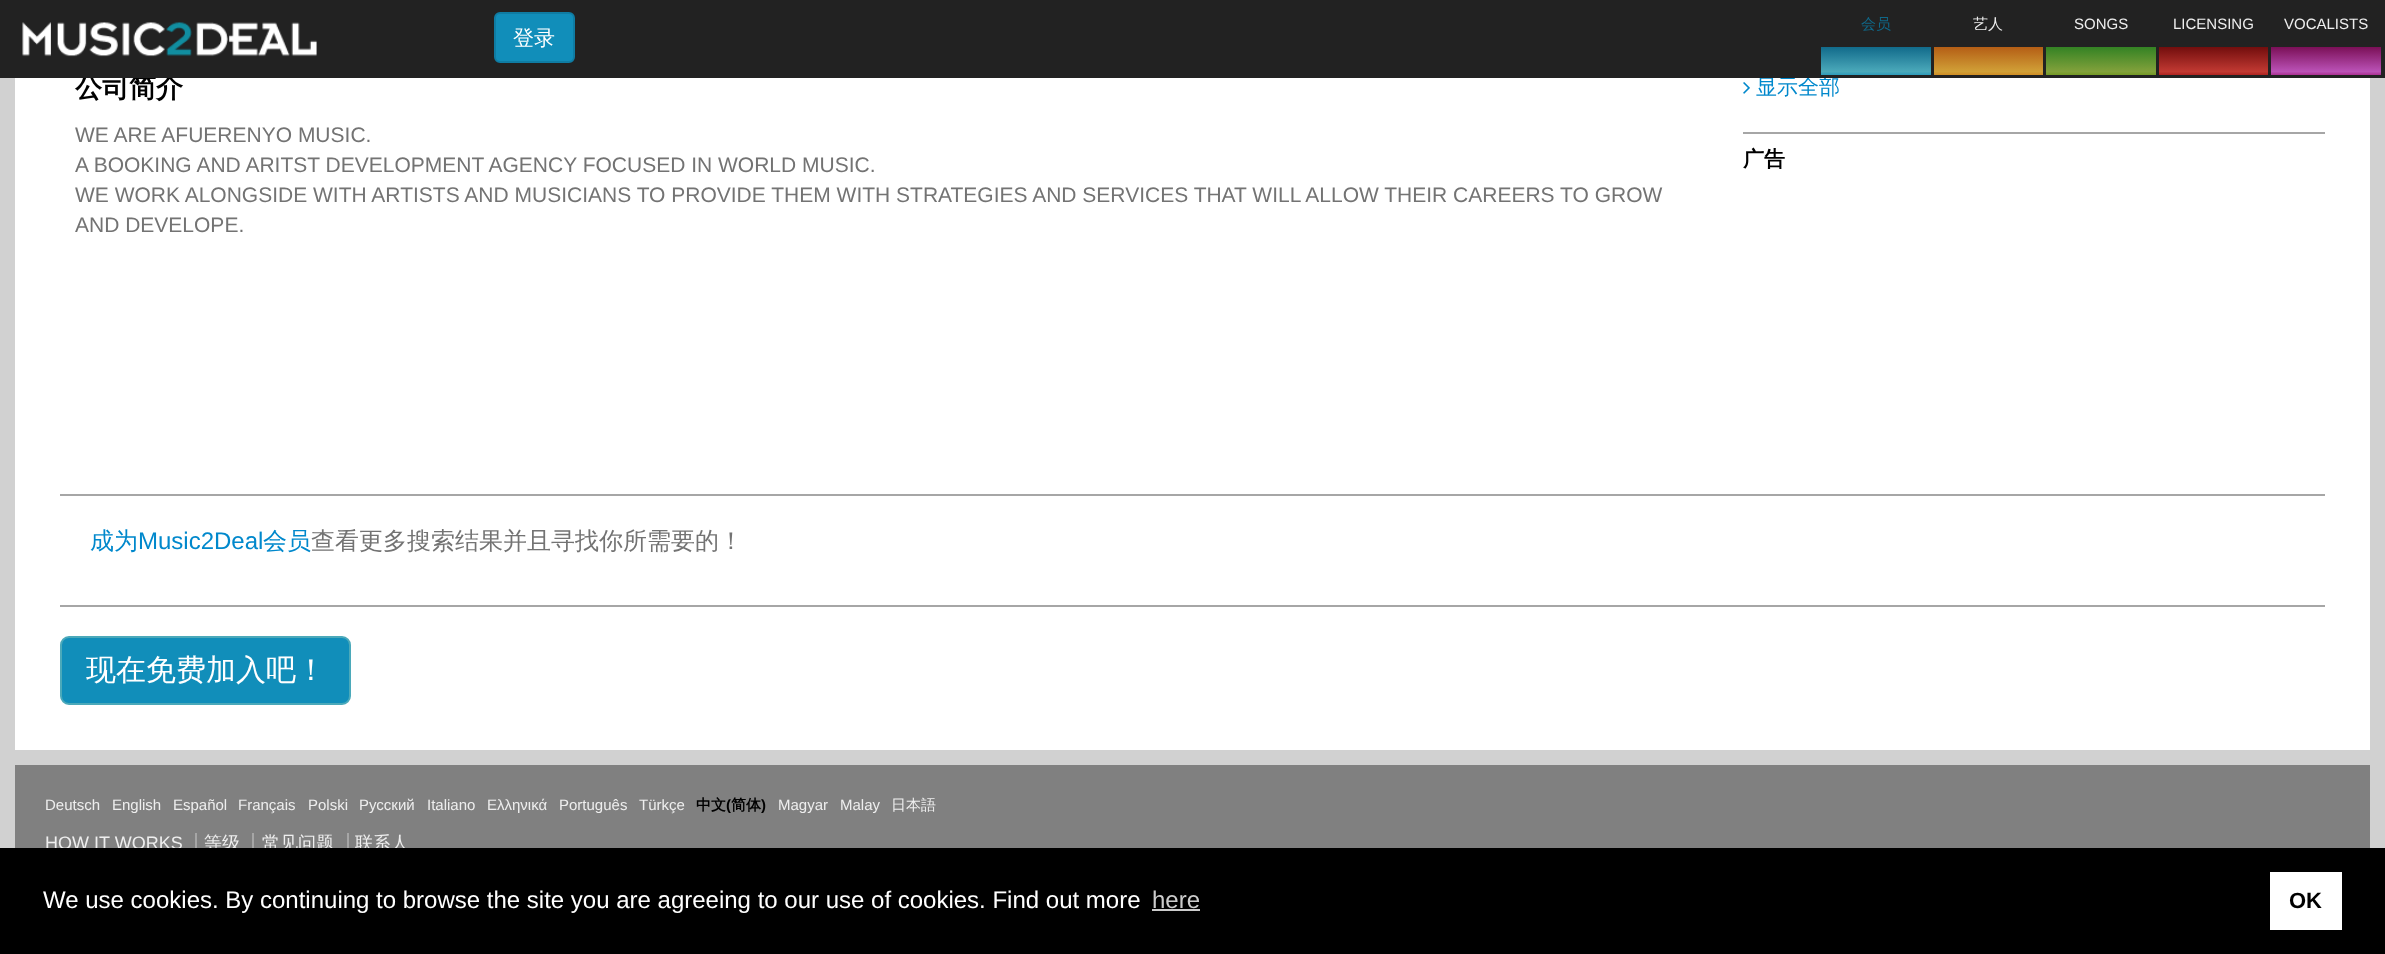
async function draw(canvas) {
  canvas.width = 2385;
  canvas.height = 954;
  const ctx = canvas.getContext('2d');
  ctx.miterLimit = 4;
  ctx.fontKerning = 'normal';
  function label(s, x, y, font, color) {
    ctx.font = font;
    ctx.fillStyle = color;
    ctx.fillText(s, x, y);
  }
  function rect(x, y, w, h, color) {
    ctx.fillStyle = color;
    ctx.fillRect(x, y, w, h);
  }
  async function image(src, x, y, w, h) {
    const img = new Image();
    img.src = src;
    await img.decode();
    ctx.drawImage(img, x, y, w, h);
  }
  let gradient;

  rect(0, 0, 2385, 954, '#d1d1d1');
  rect(15, 78, 2355, 672, '#fff');
  label('公司简介', 75, 97, 'bold 27px WenQuanYi Zen Hei', '#000');
  label('显示全部', 1756, 94, '500 21px WenQuanYi Zen Hei', '#08c');
  rect(0, 0, 2385, 78, '#222');
  label('会员', 1861, 29, '500 15px WenQuanYi Zen Hei', '#0f6889');
  gradient = ctx.createLinearGradient(1876, 46, 1876, 78);
  gradient.addColorStop(0, '#0f6889');
  gradient.addColorStop(0.8, '#4ba9ba');
  gradient.addColorStop(1, '#118eba');
  ctx.fillStyle = gradient;
  ctx.fillRect(1821, 47, 110, 28);
  label('艺人', 1973, 29, '500 15px WenQuanYi Zen Hei', '#eee');
  gradient = ctx.createLinearGradient(1988, 46, 1988, 78);
  gradient.addColorStop(0, '#b35b14');
  gradient.addColorStop(0.8, '#d1a037');
  gradient.addColorStop(1, '#cf7b14');
  ctx.fillStyle = gradient;
  ctx.fillRect(1934, 47, 109, 28);
  label('SONGS', 2074, 29, '15px Liberation Sans', '#eee');
  gradient = ctx.createLinearGradient(2101, 46, 2101, 78);
  gradient.addColorStop(0, '#308123');
  gradient.addColorStop(0.8, '#82a13b');
  gradient.addColorStop(1, '#669310');
  ctx.fillStyle = gradient;
  ctx.fillRect(2046, 47, 110, 28);
  label('LICENSING', 2173, 29, '15px Liberation Sans', '#eee');
  gradient = ctx.createLinearGradient(2213, 46, 2213, 78);
  gradient.addColorStop(0, '#6f0c0c');
  gradient.addColorStop(0.8, '#c13932');
  gradient.addColorStop(1, '#9d1111');
  ctx.fillStyle = gradient;
  ctx.fillRect(2159, 47, 109, 28);
  label('VOCALISTS', 2284, 29, '15px Liberation Sans', '#eee');
  gradient = ctx.createLinearGradient(2326, 46, 2326, 78);
  gradient.addColorStop(0, '#780d53');
  gradient.addColorStop(0.8, '#bb52b7');
  gradient.addColorStop(1, '#9a116e');
  ctx.fillStyle = gradient;
  ctx.fillRect(2271, 47, 110, 28);
  await image('assets/img1.png', 22, 22, 295, 35);
  ctx.fillStyle = '#118eba';
  ctx.beginPath();
  ctx.roundRect(495, 13, 79, 49, 5);
  ctx.fill();
  ctx.strokeStyle = '#0f7ca3';
  ctx.lineWidth = 2;
  ctx.stroke();
  label('登录', 513, 45, '500 21px WenQuanYi Zen Hei', '#fff');
  label('WE ARE AFUERENYO MUSIC.', 75, 142, '21px Liberation Sans', '#737373');
  label('A BOOKING AND ARITST DEVELOPMENT AGENCY FOCUSED IN WORLD MUSIC.', 75, 172, '21px Liberation Sans', '#737373');
  label('WE WORK ALONGSIDE WITH ARTISTS AND MUSICIANS TO PROVIDE THEM WITH STRATEGIES AND SERVICES THAT WILL ALLOW THEIR CAREERS TO GROW', 75, 202, '21px Liberation Sans', '#737373');
  label('AND DEVELOPE.', 75, 232, '21px Liberation Sans', '#737373');
  rect(1743, 132, 582, 2, '#a6a6a6');
  await image('assets/img2.png', 1743, 82, 7, 12);
  label('广告', 1743, 166, 'bold 21px WenQuanYi Zen Hei', '#000');
  rect(60, 494, 2265, 2, '#a6a6a6');
  rect(60, 605, 2265, 2, '#a6a6a6');
  label('成为', 90, 549, '500 24px WenQuanYi Zen Hei', '#08c');
  label('Music2Deal', 138, 549, '24px Liberation Sans', '#08c');
  label('会员', 263, 549, '500 24px WenQuanYi Zen Hei', '#08c');
  label('查看更多搜索结果并且寻找你所需要的！', 311, 549, '500 24px WenQuanYi Zen Hei', '#737373');
  ctx.fillStyle = '#118eba';
  ctx.beginPath();
  ctx.roundRect(61, 637, 289, 67, 8);
  ctx.fill();
  ctx.strokeStyle = '#4ba9ba';
  ctx.stroke();
  label('现在免费加入吧！', 86, 680, '500 30px WenQuanYi Zen Hei', '#fff');
  rect(15, 765, 2355, 83, '#808080');
  label('Deutsch', 45, 810, '15px Liberation Sans', '#eee');
  label('English', 112, 810, '15px Liberation Sans', '#eee');
  label('Español', 173, 810, '15px Liberation Sans', '#eee');
  label('Français', 238, 810, '15px Liberation Sans', '#eee');
  label('Polski', 308, 810, '15px Liberation Sans', '#eee');
  label('Русский', 359, 810, '15px Liberation Sans', '#eee');
  label('Italiano', 427, 810, '15px Liberation Sans', '#eee');
  label('Ελληνικά', 487, 810, '15px Liberation Sans', '#eee');
  label('Português', 559, 810, '15px Liberation Sans', '#eee');
  label('Türkçe', 639, 810, '15px Liberation Sans', '#eee');
  label('中文', 696, 810, 'bold 15px WenQuanYi Zen Hei', '#000');
  label('(', 726, 810, 'bold 15px Liberation Sans', '#000');
  label('简体', 731, 810, 'bold 15px WenQuanYi Zen Hei', '#000');
  label(')', 761, 810, 'bold 15px Liberation Sans', '#000');
  label('Magyar', 778, 810, '15px Liberation Sans', '#eee');
  label('Malay', 840, 810, '15px Liberation Sans', '#eee');
  label('日本語', 891, 810, '500 15px WenQuanYi Zen Hei', '#eee');
  label('HOW IT WORKS', 45, 849, '18px Liberation Sans', '#eee');
  label('等级', 204, 849, '500 18px WenQuanYi Zen Hei', '#eee');
  rect(195, 833, 2, 21, '#a6a6a6');
  label('常见问题', 262, 849, '500 18px WenQuanYi Zen Hei', '#eee');
  rect(252, 833, 2, 21, '#a6a6a6');
  label('联系人', 355, 849, '500 18px WenQuanYi Zen Hei', '#eee');
  rect(347, 833, 2, 21, '#a6a6a6');
  rect(0, 848, 2385, 106, '#000');
  label('We use cookies. By continuing to browse the site you are agreeing to our use of cookies. Find out more', 43, 908, '24px Liberation Sans', '#fff');
  label('here', 1152, 908, '24px Liberation Sans', '#ccc');
  rect(1152, 909, 48, 2, '#ccc');
  rect(2270, 872, 72, 58, '#fff');
  label('OK', 2289, 908, 'bold 22px Liberation Sans', '#000');
}

draw(document.querySelector('canvas'));
